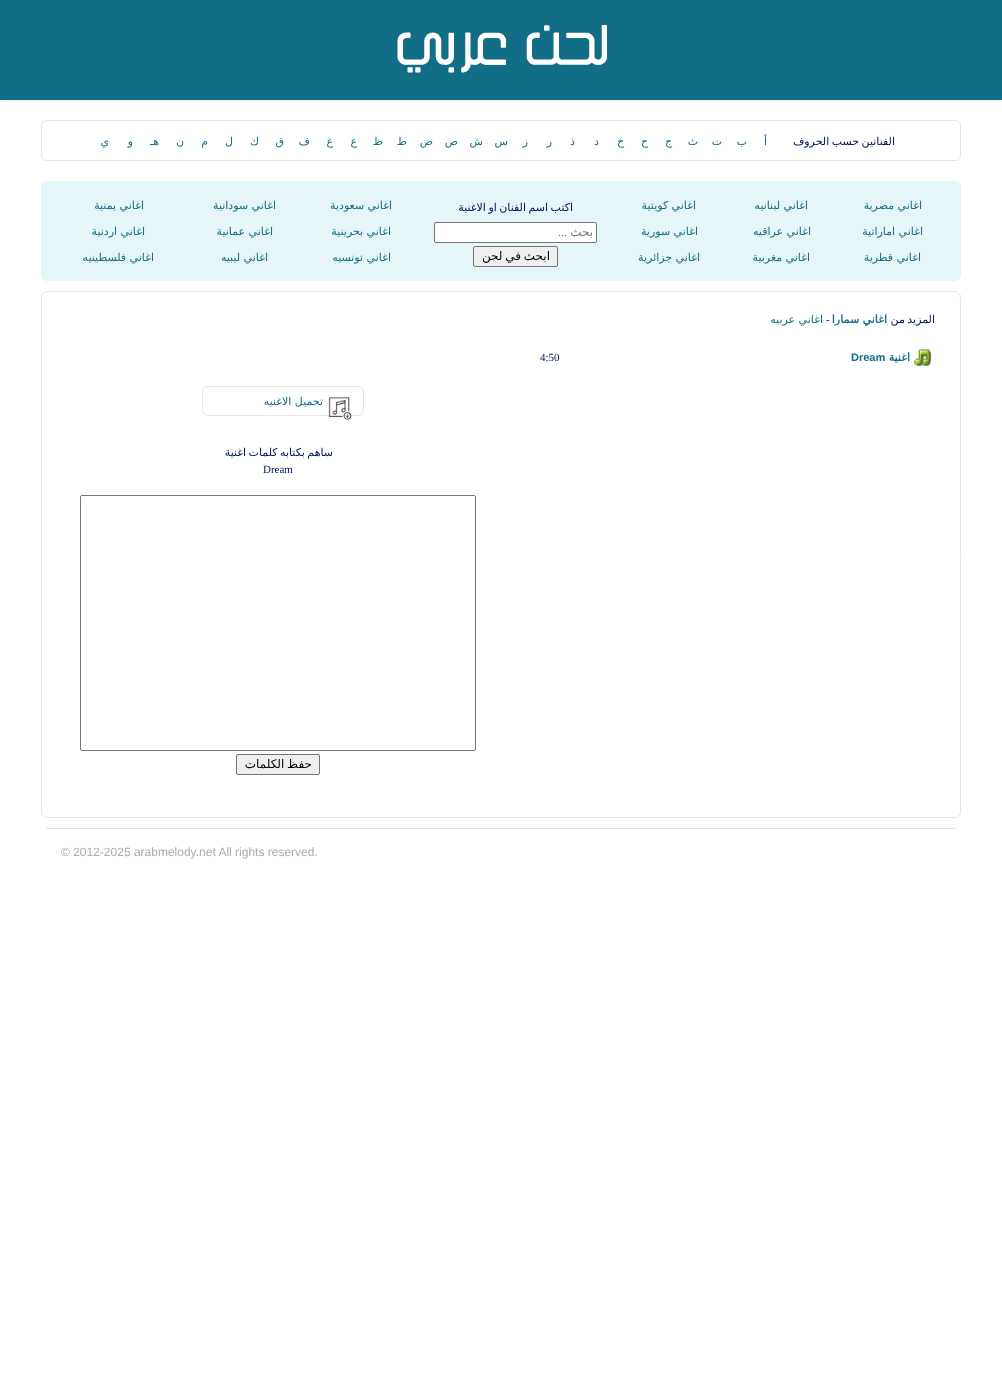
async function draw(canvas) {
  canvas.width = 1002;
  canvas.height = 1388;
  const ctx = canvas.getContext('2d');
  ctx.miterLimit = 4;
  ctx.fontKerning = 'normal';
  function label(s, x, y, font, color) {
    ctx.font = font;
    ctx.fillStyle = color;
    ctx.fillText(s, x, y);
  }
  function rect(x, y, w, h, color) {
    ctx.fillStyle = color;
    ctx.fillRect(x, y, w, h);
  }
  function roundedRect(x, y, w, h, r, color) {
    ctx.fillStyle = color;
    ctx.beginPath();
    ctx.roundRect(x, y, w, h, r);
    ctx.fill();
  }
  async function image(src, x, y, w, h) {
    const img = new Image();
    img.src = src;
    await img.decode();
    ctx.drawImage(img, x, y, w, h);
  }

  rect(0, 0, 1002, 1388, '#fff');
  ctx.fillStyle = '#0000001a';
  ctx.filter = 'blur(1.5px)';
  ctx.beginPath();
  ctx.rect(0, 1, 1002, 100);
  ctx.fill();
  ctx.filter = 'none';
  rect(0, 0, 1002, 100, '#126d87');
  await image('assets/img1.png', 397, 25, 210, 48);
  ctx.beginPath();
  ctx.roundRect(41.5, 120.5, 919, 40, 5.5);
  ctx.strokeStyle = '#e5e5e5';
  ctx.stroke();
  ctx.wordSpacing = '-1px';
  ctx.direction = 'rtl';
  label('الفنانين حسب الحروف', 895, 145, '11px DejaVu Sans', '#00135d');
  ctx.wordSpacing = '0px';
  label('أ', 767, 145, '11px DejaVu Sans', '#126d87');
  label('ب', 747, 145, '11px DejaVu Sans', '#126d87');
  label('ت', 722, 145, '11px DejaVu Sans', '#126d87');
  label('ث', 698, 145, '11px DejaVu Sans', '#126d87');
  label('ج', 672, 145, '11px DejaVu Sans', '#126d87');
  label('ح', 648, 145, '11px DejaVu Sans', '#126d87');
  label('خ', 624, 145, '11px DejaVu Sans', '#126d87');
  label('د', 599, 145, '11px DejaVu Sans', '#126d87');
  label('ذ', 575, 145, '11px DejaVu Sans', '#126d87');
  label('ر', 552, 145, '11px DejaVu Sans', '#126d87');
  label('ز', 528, 145, '11px DejaVu Sans', '#126d87');
  label('س', 508, 145, '11px DejaVu Sans', '#126d87');
  label('ش', 483, 145, '11px DejaVu Sans', '#126d87');
  label('ص', 458, 145, '11px DejaVu Sans', '#126d87');
  label('ض', 433, 145, '11px DejaVu Sans', '#126d87');
  label('ط', 407, 145, '11px DejaVu Sans', '#126d87');
  label('ظ', 383, 145, '11px DejaVu Sans', '#126d87');
  label('ع', 357, 145, '11px DejaVu Sans', '#126d87');
  label('غ', 333, 145, '11px DejaVu Sans', '#126d87');
  label('ف', 310, 145, '11px DejaVu Sans', '#126d87');
  label('ق', 284, 145, '11px DejaVu Sans', '#126d87');
  label('ك', 259, 145, '11px DejaVu Sans', '#126d87');
  label('ل', 233, 145, '11px DejaVu Sans', '#126d87');
  label('م', 208, 145, '11px DejaVu Sans', '#126d87');
  label('ن', 184, 145, '11px DejaVu Sans', '#126d87');
  label('هـ', 159, 145, '11px DejaVu Sans', '#126d87');
  label('و', 133, 145, '11px DejaVu Sans', '#126d87');
  label('ي', 109, 145, '11px DejaVu Sans', '#126d87');
  roundedRect(41, 181, 920, 100, 6, '#e6f5f7');
  label('اغاني مصرية', 922, 209, '11px DejaVu Sans', '#126d87');
  label('اغاني لبنانيه', 808, 209, '11px DejaVu Sans', '#126d87');
  label('اغاني كويتية', 696, 209, '11px DejaVu Sans', '#126d87');
  ctx.wordSpacing = '-1px';
  label('اكتب اسم الفنان او الاغنية', 573, 211, '11px DejaVu Sans', '#00135d');
  ctx.fillStyle = '#fff';
  ctx.beginPath();
  ctx.roundRect(434.5, 222.5, 162, 20, 1.5);
  ctx.fill();
  ctx.strokeStyle = '#767676';
  ctx.stroke();
  ctx.wordSpacing = '0px';
  label('بحث', 593, 236, '12px DejaVu Sans', '#757575');
  label('...', 567, 236, '12px Liberation Serif', '#757575');
  ctx.fillStyle = '#efefef';
  ctx.beginPath();
  ctx.roundRect(473.5, 246.5, 84, 20, 1.5);
  ctx.fill();
  ctx.stroke();
  ctx.wordSpacing = '-1px';
  label('ابحث في لحن', 550, 260, '12px DejaVu Sans', '#000');
  ctx.wordSpacing = '0px';
  label('اغاني سعودية', 392, 209, '11px DejaVu Sans', '#126d87');
  label('اغاني سودانية', 276, 209, '11px DejaVu Sans', '#126d87');
  label('اغاني يمنية', 144, 209, '11px DejaVu Sans', '#126d87');
  label('اغاني اماراتية', 923, 235, '11px DejaVu Sans', '#126d87');
  label('اغاني عراقيه', 811, 235, '11px DejaVu Sans', '#126d87');
  label('اغاني سورية', 698, 235, '11px DejaVu Sans', '#126d87');
  label('اغاني بحرينية', 391, 235, '11px DejaVu Sans', '#126d87');
  label('اغاني عمانية', 273, 235, '11px DejaVu Sans', '#126d87');
  label('اغاني اردنية', 145, 235, '11px DejaVu Sans', '#126d87');
  label('اغاني قطرية', 921, 261, '11px DejaVu Sans', '#126d87');
  label('اغاني مغربية', 810, 261, '11px DejaVu Sans', '#126d87');
  label('اغاني جزائرية', 700, 261, '11px DejaVu Sans', '#126d87');
  label('اغاني تونسيه', 391, 261, '11px DejaVu Sans', '#126d87');
  label('اغاني ليبيه', 268, 261, '11px DejaVu Sans', '#126d87');
  label('اغاني فلسطينيه', 154, 261, '11px DejaVu Sans', '#126d87');
  ctx.beginPath();
  ctx.roundRect(41.5, 291.5, 919, 526, 5.5);
  ctx.strokeStyle = '#e5e5e5';
  ctx.stroke();
  ctx.wordSpacing = '-1px';
  label('المزيد من', 935, 323, '11px DejaVu Sans', '#00135d');
  ctx.wordSpacing = '0px';
  label('اغاني سمارا', 887, 323, 'bold 11px DejaVu Sans', '#126d87');
  ctx.direction = 'ltr';
  label('-', 826, 323, '11px Liberation Serif', '#00135d');
  ctx.direction = 'rtl';
  label('اغاني عربيه', 823, 323, '11px DejaVu Sans', '#126d87');
  await image('assets/img2.png', 914, 349, 18, 17);
  label('اغنية', 910, 361, 'bold 11px DejaVu Sans', '#126d87');
  ctx.direction = 'ltr';
  label('Dream', 851, 361, 'bold 11px Liberation Sans', '#126d87');
  label('4:50', 540, 361, '11px Liberation Serif', '#00135d');
  ctx.beginPath();
  ctx.roundRect(202.5, 386.5, 161, 29, 5.5);
  ctx.stroke();
  await image('assets/img3.png', 328, 396, 24, 24);
  ctx.direction = 'rtl';
  label('تحميل الاغنيه', 323, 405, '11px DejaVu Sans', '#126d87');
  ctx.wordSpacing = '-1px';
  label('ساهم بكتابه كلمات اغنية', 333, 456, '11px DejaVu Sans', '#00135d');
  ctx.wordSpacing = '0px';
  ctx.direction = 'ltr';
  label('Dream', 263, 473, '11px Liberation Serif', '#00135d');
  ctx.beginPath();
  ctx.roundRect(80.5, 495.5, 395, 255, 1.5);
  ctx.strokeStyle = '#767676';
  ctx.stroke();
  ctx.fillStyle = '#efefef';
  ctx.beginPath();
  ctx.roundRect(236.5, 754.5, 83, 20, 1.5);
  ctx.fill();
  ctx.stroke();
  ctx.wordSpacing = '-1px';
  ctx.direction = 'rtl';
  label('حفظ الكلمات', 312, 768, '12px DejaVu Sans', '#000');
  rect(46, 828, 910, 1, '#e1e1e1');
  ctx.wordSpacing = '0px';
  ctx.direction = 'ltr';
  label('© 2012-2025 arabmelody.net All rights reserved.', 61, 856, '12px Liberation Sans', '#aaa');
}

draw(document.querySelector('canvas'));
